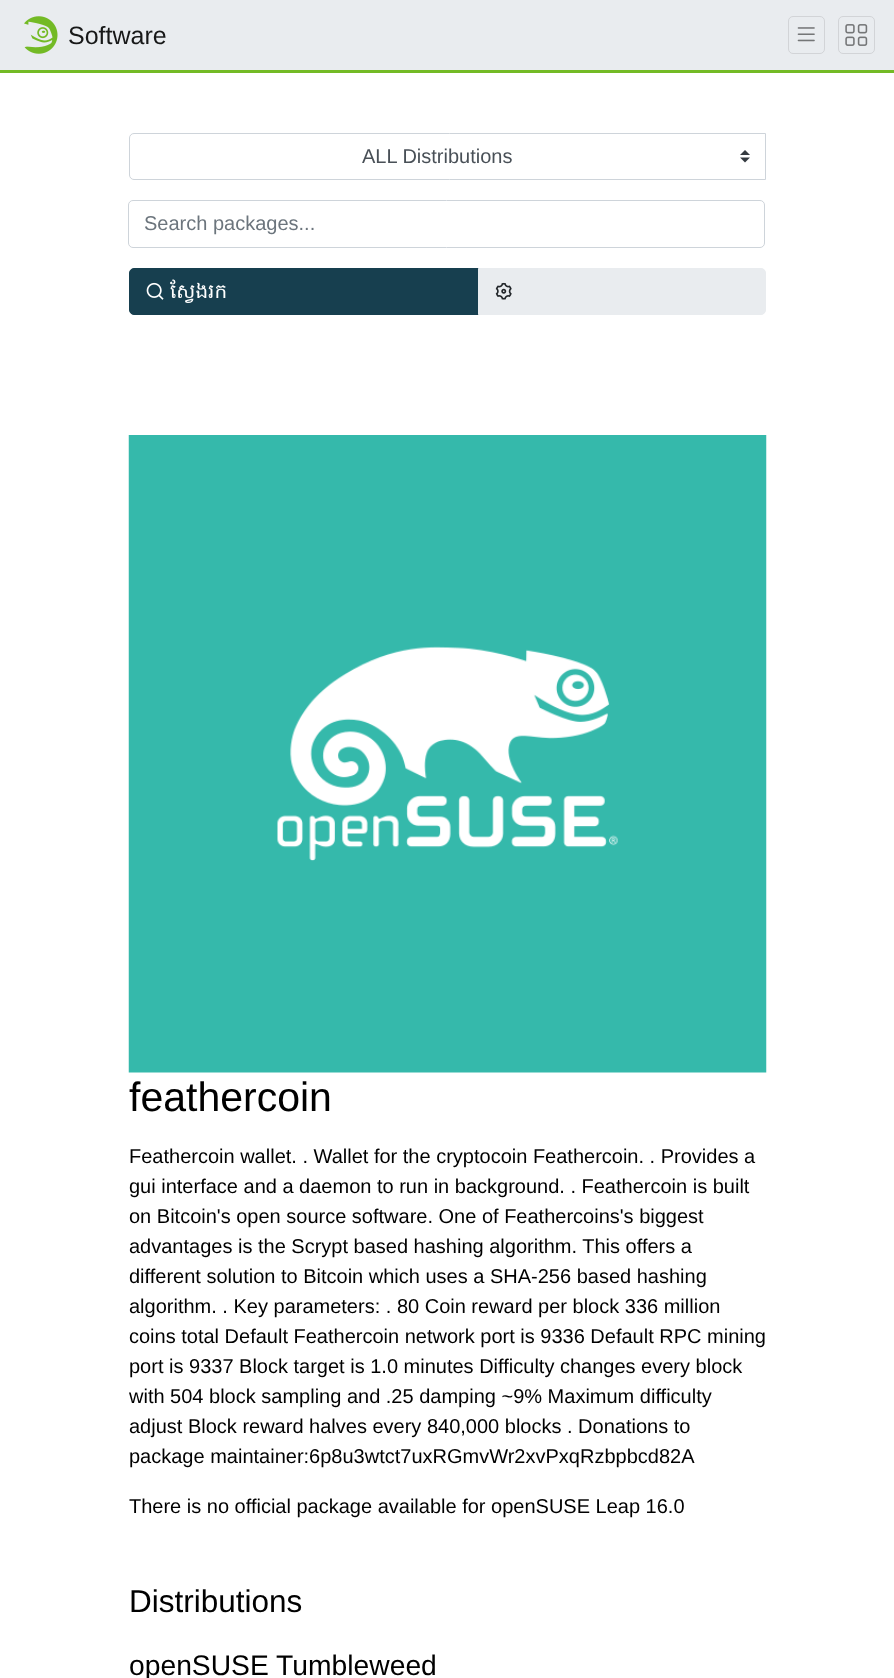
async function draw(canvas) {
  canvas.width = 894;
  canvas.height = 1678;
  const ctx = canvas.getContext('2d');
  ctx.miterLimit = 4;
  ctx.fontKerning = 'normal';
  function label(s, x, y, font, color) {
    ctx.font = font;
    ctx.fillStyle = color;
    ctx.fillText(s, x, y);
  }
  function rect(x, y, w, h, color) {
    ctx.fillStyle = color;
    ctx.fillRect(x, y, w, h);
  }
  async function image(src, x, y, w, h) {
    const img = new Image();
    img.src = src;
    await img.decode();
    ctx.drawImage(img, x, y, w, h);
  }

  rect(0, 0, 894, 1678, '#fff');
  rect(0, 0, 894, 70, '#e9ecef');
  rect(0, 70, 894, 3, '#73ba25');
  await image('assets/img1.png', 24, 16, 34, 38);
  label('Software', 68, 44, '25px Liberation Sans', '#171818');
  ctx.beginPath();
  ctx.roundRect(788.5, 16.5, 36, 37, 4.5);
  ctx.strokeStyle = '#d2d4d7';
  ctx.stroke();
  await image('assets/img2.png', 797, 27, 18, 15);
  ctx.beginPath();
  ctx.roundRect(838.5, 16.5, 36, 37, 4.5);
  ctx.stroke();
  await image('assets/img3.png', 845, 24, 23, 22);
  await image('assets/img4.png', 740, 150, 10, 13);
  ctx.beginPath();
  ctx.roundRect(129.5, 133.5, 636, 46, [4.5, 0, 0, 4.5]);
  ctx.strokeStyle = '#ced4da';
  ctx.stroke();
  label('ALL Distributions', 362, 163, '20px Liberation Sans', '#495057');
  ctx.beginPath();
  ctx.roundRect(128.5, 200.5, 636, 47, 4.5);
  ctx.stroke();
  label('Search packages...', 144, 230, '20px Liberation Sans', '#6c757d');
  ctx.fillStyle = '#173f4f';
  ctx.beginPath();
  ctx.roundRect(129.5, 268.5, 349, 46, [4.5, 0, 0, 4.5]);
  ctx.fill();
  ctx.strokeStyle = '#173f4f';
  ctx.stroke();
  label('ស្វែងរក', 170, 298, '20px Hanuman', '#fff');
  await image('assets/img5.png', 146, 282, 18, 18);
  ctx.fillStyle = '#e9ecef';
  ctx.beginPath();
  ctx.roundRect(478.5, 268.5, 287, 46, [0, 4.5, 4.5, 0]);
  ctx.fill();
  ctx.strokeStyle = '#e9ecef';
  ctx.stroke();
  await image('assets/img6.png', 495, 282, 17, 18);
  await image('assets/img7.png', 128, 435, 639, 638);
  label('feathercoin', 129, 1111, '41px Liberation Sans', '#000');
  label('Feathercoin wallet. . Wallet for the cryptocoin Feathercoin. . Provides a', 129, 1163, '20px Liberation Sans', '#000');
  label('gui interface and a daemon to run in background. . Feathercoin is built', 129, 1193, '20px Liberation Sans', '#000');
  label('on Bitcoin\'s open source software. One of Feathercoins\'s biggest', 129, 1223, '20px Liberation Sans', '#000');
  label('advantages is the Scrypt based hashing algorithm. This offers a', 129, 1253, '20px Liberation Sans', '#000');
  label('different solution to Bitcoin which uses a SHA-256 based hashing', 129, 1283, '20px Liberation Sans', '#000');
  label('algorithm. . Key parameters: . 80 Coin reward per block 336 million', 129, 1313, '20px Liberation Sans', '#000');
  label('coins total Default Feathercoin network port is 9336 Default RPC mining', 129, 1343, '20px Liberation Sans', '#000');
  label('port is 9337 Block target is 1.0 minutes Difficulty changes every block', 129, 1373, '20px Liberation Sans', '#000');
  label('with 504 block sampling and .25 damping ~9% Maximum difficulty', 129, 1403, '20px Liberation Sans', '#000');
  label('adjust Block reward halves every 840,000 blocks . Donations to', 129, 1433, '20px Liberation Sans', '#000');
  label('package maintainer:6p8u3wtct7uxRGmvWr2xvPxqRzbpbcd82A', 129, 1463, '20px Liberation Sans', '#000');
  label('There is no official package available for openSUSE Leap 16.0', 129, 1513, '20px Liberation Sans', '#000');
  label('Distributions', 129, 1612, '31.5px Liberation Sans', '#000');
  label('openSUSE Tumbleweed', 129, 1675, '28.25px Liberation Sans', '#000');
}

draw(document.querySelector('canvas'));
